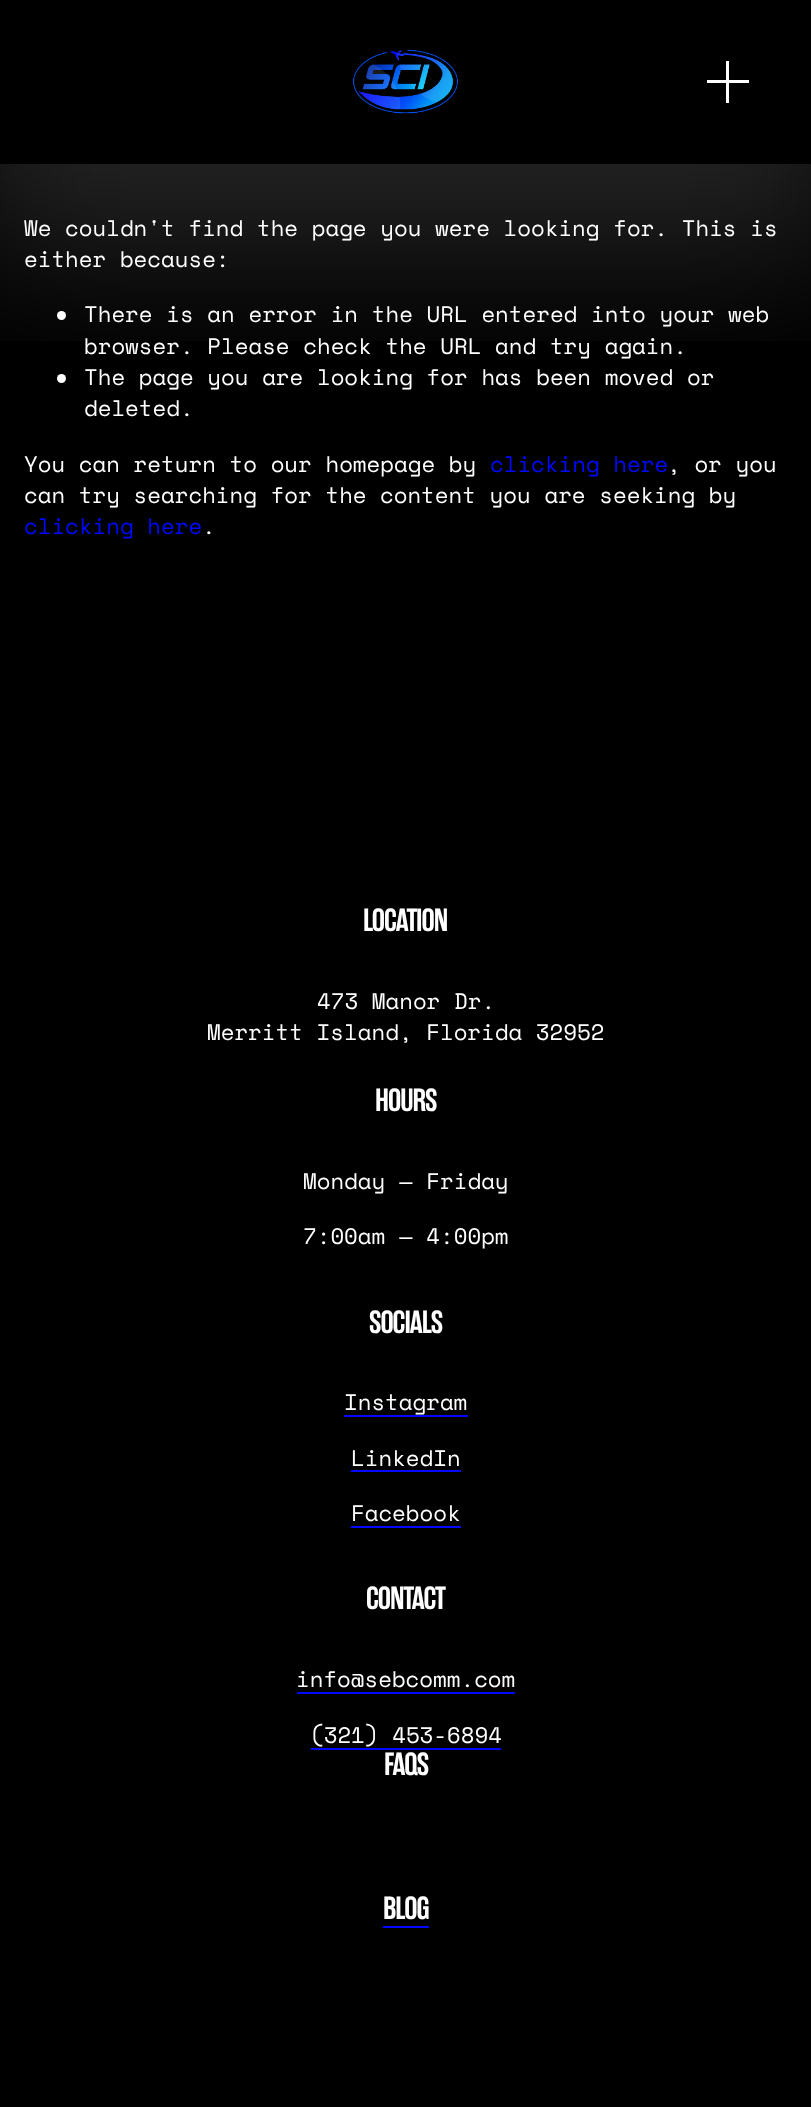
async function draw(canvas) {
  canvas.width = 811;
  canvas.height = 2107;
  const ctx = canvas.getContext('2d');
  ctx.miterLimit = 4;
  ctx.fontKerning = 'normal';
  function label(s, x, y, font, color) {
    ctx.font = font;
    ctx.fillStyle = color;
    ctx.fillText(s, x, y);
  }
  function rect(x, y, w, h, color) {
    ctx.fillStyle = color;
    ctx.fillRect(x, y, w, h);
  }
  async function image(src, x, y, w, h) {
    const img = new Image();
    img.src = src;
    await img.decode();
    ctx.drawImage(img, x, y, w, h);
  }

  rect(0, 0, 811, 2107, '#000');
  ctx.fillStyle = '#fff';
  ctx.beginPath();
  ctx.arc(61.5, 315.5, 4.5, 0, 2 * Math.PI);
  ctx.fill();
  ctx.beginPath();
  ctx.arc(61.5, 378.5, 4.5, 0, 2 * Math.PI);
  ctx.fill();
  ctx.save();
  ctx.beginPath();
  ctx.rect(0, 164, 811, 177);
  ctx.clip();
  ctx.fillStyle = '#ffffff26';
  ctx.filter = 'blur(83px)';
  ctx.beginPath();
  ctx.rect(-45, -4, 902, 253);
  ctx.fill();
  ctx.filter = 'none';
  ctx.restore();
  ctx.strokeStyle = '#000';
  ctx.lineWidth = 2;
  ctx.strokeRect(1, 1, 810, 162);
  await image('assets/img1.png', 353, 49, 105, 65);
  rect(707, 80, 42, 3, '#fff');
  rect(726, 61, 3, 42, '#fff');
  label('We couldn\'t find the page you were looking for. This is', 24, 236, '22.4px Space Mono', '#fff');
  label('either because:', 24, 267, '22.4px Space Mono', '#fff');
  label('There is an error in the URL entered into your web', 84, 322, '22.4px Space Mono', '#fff');
  label('browser. Please check the URL and try again.', 84, 354, '22.4px Space Mono', '#fff');
  label('The page you are looking for has been moved or', 84, 385, '22.4px Space Mono', '#fff');
  label('deleted.', 84, 416, '22.4px Space Mono', '#fff');
  label('You can return to our homepage by', 24, 472, '22.4px Space Mono', '#fff');
  label('clicking here', 490, 472, '22.4px Space Mono', '#0008ff');
  label(', or you', 667, 472, '22.4px Space Mono', '#fff');
  label('can try searching for the', 24, 503, '22.4px Space Mono', '#fff');
  label('content you are seeking by', 380, 503, '22.4px Space Mono', '#fff');
  label('clicking here', 24, 534, '22.4px Space Mono', '#0008ff');
  label('.', 202, 534, '22.4px Space Mono', '#fff');
  ctx.letterSpacing = '-1px';
  label('LOCATION', 363, 931, '600 32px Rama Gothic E', '#fff');
  ctx.letterSpacing = '0px';
  label('473 Manor Dr.', 317, 1009, '22.4px Space Mono', '#fff');
  label('Merritt Island, Florida 32952', 207, 1040, '22.4px Space Mono', '#fff');
  ctx.letterSpacing = '-1px';
  label('HOURS', 375, 1111, '600 32px Rama Gothic E', '#fff');
  ctx.letterSpacing = '0px';
  label('Monday — Friday', 303, 1189, '22.4px Space Mono', '#fff');
  label('7:00am — 4:00pm', 303, 1244, '22.4px Space Mono', '#fff');
  ctx.letterSpacing = '-1px';
  label('SOCIALS', 369, 1333, '600 32px Rama Gothic E', '#fff');
  ctx.letterSpacing = '0px';
  label('Instagram', 344, 1410, '22.4px Space Mono', '#fff');
  rect(344, 1415, 124, 2, '#0008ff');
  label('LinkedIn', 351, 1466, '22.4px Space Mono', '#fff');
  rect(351, 1470, 110, 2, '#0008ff');
  label('Facebook', 351, 1521, '22.4px Space Mono', '#fff');
  rect(351, 1526, 110, 2, '#0008ff');
  ctx.letterSpacing = '-1px';
  label('CONTACT', 366, 1609, '600 32px Rama Gothic E', '#fff');
  ctx.letterSpacing = '0px';
  label('info@sebcomm.com', 296, 1687, '22.4px Space Mono', '#fff');
  rect(297, 1692, 218, 2, '#0008ff');
  label('(321) 453-6894', 310, 1743, '22.4px Space Mono', '#fff');
  rect(311, 1748, 190, 2, '#0008ff');
  ctx.letterSpacing = '-1px';
  label('FAQS', 384, 1775, '600 32px Rama Gothic E', '#fff');
  label('BLOG', 383, 1919, '600 32px Rama Gothic E', '#fff');
  rect(383, 1926, 46, 2, '#0008ff');
}

draw(document.querySelector('canvas'));
